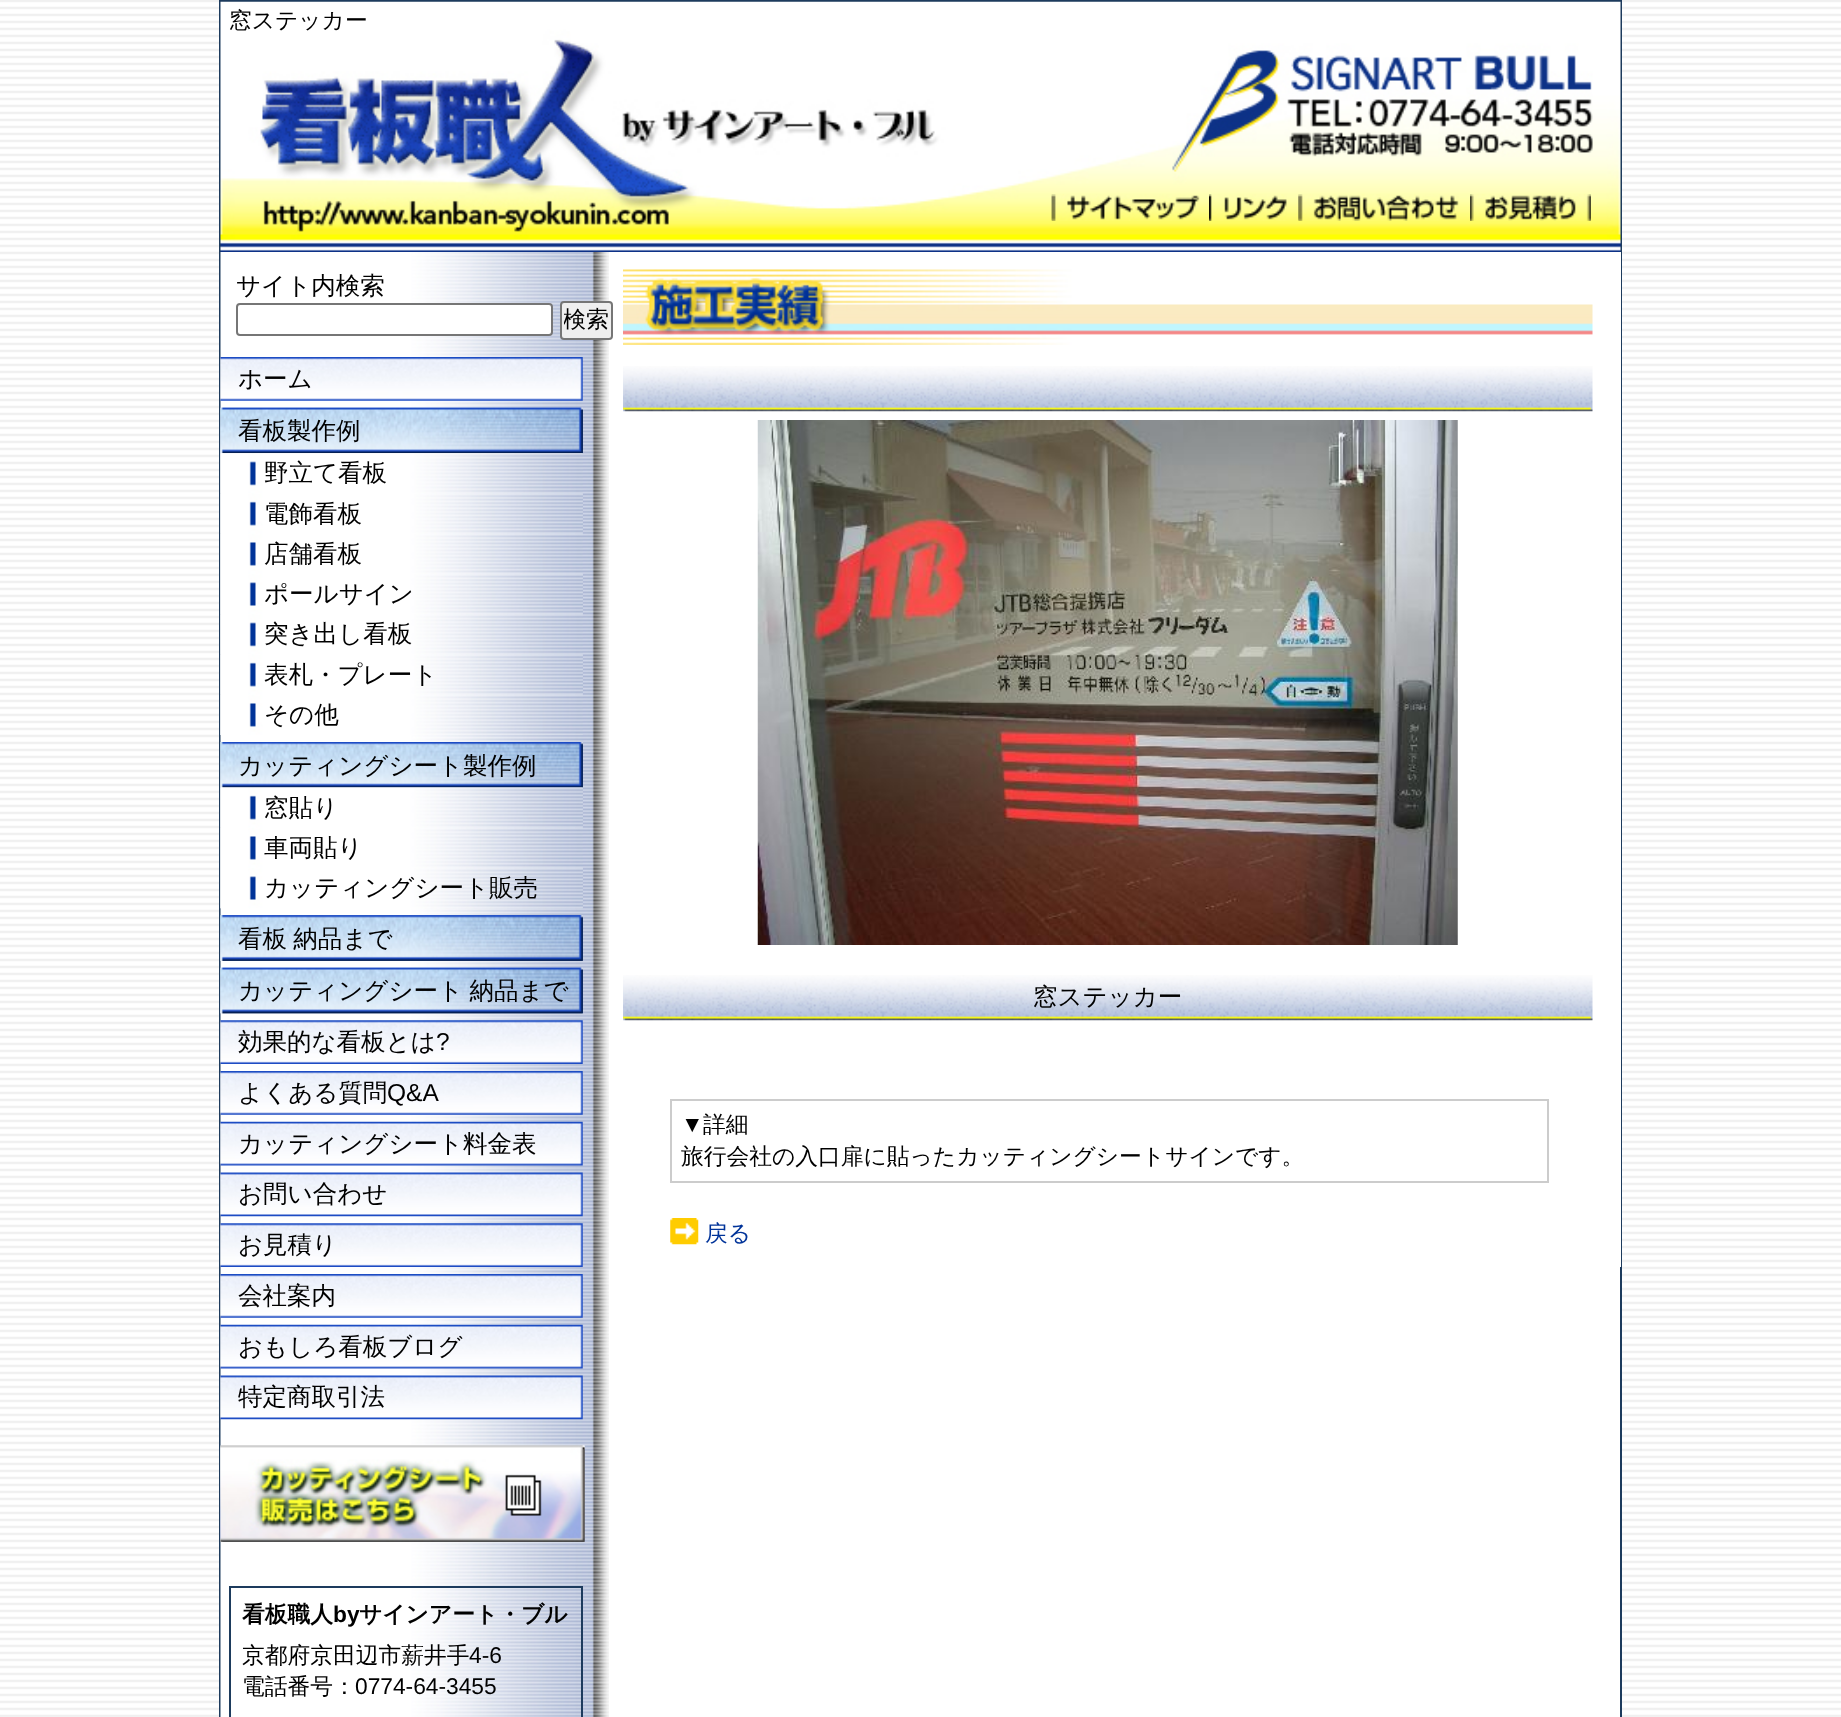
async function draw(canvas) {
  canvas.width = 1841;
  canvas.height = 1717;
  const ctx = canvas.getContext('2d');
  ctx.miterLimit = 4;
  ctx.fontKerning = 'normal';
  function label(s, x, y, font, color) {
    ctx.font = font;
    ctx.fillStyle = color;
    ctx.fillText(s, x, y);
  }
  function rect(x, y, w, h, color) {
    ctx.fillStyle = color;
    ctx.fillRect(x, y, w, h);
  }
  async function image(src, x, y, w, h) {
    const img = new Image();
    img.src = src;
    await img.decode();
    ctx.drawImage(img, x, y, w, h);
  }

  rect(0, 0, 1841, 1717, '#fff');
  await image('assets/img1.png', 0, 0, 1841, 1717);
  rect(609, 252, 1011, 1465, '#fff');
  ctx.strokeStyle = '#1d3b5d';
  ctx.lineWidth = 2;
  ctx.strokeRect(220, 1, 1401, 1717);
  await image('assets/img2.png', 220, 1, 1401, 251);
  label('窓ステッカー', 229, 28, '500 22.75px WenQuanYi Zen Hei', '#000');
  await image('assets/img3.png', 1051, 194, 149, 27);
  await image('assets/img4.png', 1051, 194, 148, 27);
  await image('assets/img5.png', 1209, 194, 78, 27);
  await image('assets/img6.png', 1209, 194, 78, 27);
  await image('assets/img7.png', 1298, 194, 161, 27);
  await image('assets/img8.png', 1298, 194, 161, 27);
  await image('assets/img9.png', 1470, 194, 121, 27);
  await image('assets/img10.png', 1470, 194, 121, 27);
  await image('assets/img11.png', 220, 252, 389, 1465);
  label('サイト内検索', 236, 294, '500 24.5px WenQuanYi Zen Hei', '#000');
  ctx.fillStyle = '#fff';
  ctx.beginPath();
  ctx.roundRect(237, 304, 315, 31, 3);
  ctx.fill();
  ctx.strokeStyle = '#767676';
  ctx.stroke();
  ctx.fillStyle = '#efefef';
  ctx.beginPath();
  ctx.roundRect(561, 302, 51, 37, 3);
  ctx.fill();
  ctx.stroke();
  ctx.save();
  ctx.beginPath();
  ctx.rect(564, 305, 45, 31);
  ctx.clip();
  label('検索', 563, 327, '500 23px WenQuanYi Zen Hei', '#000');
  ctx.restore();
  await image('assets/img12.png', 220, 357, 363, 44);
  label('ホーム', 238, 387, '500 24.5px WenQuanYi Zen Hei', '#000');
  await image('assets/img13.png', 220, 407, 363, 47);
  await image('assets/img14.png', 220, 407, 363, 47);
  label('看板製作例', 238, 439, '500 24.5px WenQuanYi Zen Hei', '#000');
  await image('assets/img15.png', 220, 453, 363, 41);
  await image('assets/img16.png', 220, 453, 363, 41);
  label('野立て看板', 264, 481, '500 24.5px WenQuanYi Zen Hei', '#000');
  await image('assets/img17.png', 220, 493, 363, 41);
  await image('assets/img18.png', 220, 493, 363, 41);
  label('電飾看板', 264, 522, '500 24.5px WenQuanYi Zen Hei', '#000');
  await image('assets/img19.png', 220, 533, 363, 41);
  await image('assets/img20.png', 220, 533, 1, 41);
  label('店舗看板', 264, 562, '500 24.5px WenQuanYi Zen Hei', '#000');
  await image('assets/img21.png', 220, 574, 363, 41);
  await image('assets/img22.png', 220, 574, 363, 41);
  label('ポールサイン', 264, 602, '500 24.5px WenQuanYi Zen Hei', '#000');
  await image('assets/img23.png', 220, 614, 363, 41);
  await image('assets/img24.png', 220, 614, 363, 41);
  label('突き出し看板', 264, 642, '500 24.5px WenQuanYi Zen Hei', '#000');
  await image('assets/img25.png', 220, 654, 363, 41);
  await image('assets/img26.png', 220, 654, 363, 41);
  label('表札・プレート', 264, 683, '500 24.5px WenQuanYi Zen Hei', '#000');
  await image('assets/img27.png', 220, 694, 363, 41);
  await image('assets/img20.png', 220, 694, 1, 41);
  label('その他', 264, 723, '500 24.5px WenQuanYi Zen Hei', '#000');
  await image('assets/img28.png', 220, 742, 363, 46);
  await image('assets/img29.png', 220, 742, 363, 46);
  label('カッティングシート製作例', 238, 774, '500 24.5px WenQuanYi Zen Hei', '#000');
  await image('assets/img30.png', 220, 787, 363, 41);
  await image('assets/img31.png', 220, 787, 363, 41);
  label('窓貼り', 264, 816, '500 24.5px WenQuanYi Zen Hei', '#000');
  await image('assets/img19.png', 220, 827, 363, 41);
  await image('assets/img20.png', 220, 827, 1, 41);
  label('車両貼り', 264, 856, '500 24.5px WenQuanYi Zen Hei', '#000');
  await image('assets/img21.png', 220, 868, 363, 41);
  await image('assets/img22.png', 220, 868, 363, 41);
  label('カッティングシート販売', 264, 896, '500 24.5px WenQuanYi Zen Hei', '#000');
  await image('assets/img32.png', 220, 915, 363, 46);
  await image('assets/img33.png', 220, 915, 363, 46);
  ctx.wordSpacing = '-1px';
  label('看板 納品まで', 238, 947, '500 24.5px WenQuanYi Zen Hei', '#000');
  await image('assets/img34.png', 220, 967, 363, 47);
  await image('assets/img35.png', 220, 967, 363, 47);
  label('カッティングシート 納品まで', 238, 999, '500 24.5px WenQuanYi Zen Hei', '#000');
  await image('assets/img36.png', 220, 1020, 363, 44);
  ctx.wordSpacing = '0px';
  label('効果的な看板とは', 238, 1050, '500 24.5px WenQuanYi Zen Hei', '#000');
  label('?', 436, 1050, '24.5px Liberation Sans', '#000');
  await image('assets/img12.png', 220, 1071, 363, 44);
  label('よくある質問', 238, 1101, '500 24.5px WenQuanYi Zen Hei', '#000');
  label('Q&A', 387, 1101, '24.5px Liberation Sans', '#000');
  await image('assets/img37.png', 220, 1121, 363, 45);
  label('カッティングシート料金表', 238, 1152, '500 24.5px WenQuanYi Zen Hei', '#000');
  await image('assets/img38.png', 220, 1172, 363, 45);
  label('お問い合わせ', 238, 1202, '500 24.5px WenQuanYi Zen Hei', '#000');
  await image('assets/img39.png', 220, 1223, 363, 44);
  label('お見積り', 238, 1253, '500 24.5px WenQuanYi Zen Hei', '#000');
  await image('assets/img40.png', 220, 1274, 363, 44);
  label('会社案内', 238, 1304, '500 24.5px WenQuanYi Zen Hei', '#000');
  await image('assets/img41.png', 220, 1324, 363, 45);
  label('おもしろ看板ブログ', 238, 1355, '500 24.5px WenQuanYi Zen Hei', '#000');
  await image('assets/img42.png', 220, 1375, 363, 45);
  label('特定商取引法', 238, 1405, '500 24.5px WenQuanYi Zen Hei', '#000');
  await image('assets/img43.png', 220, 1445, 365, 97);
  await image('assets/img44.png', 220, 1445, 365, 97);
  ctx.strokeStyle = '#1d3b5d';
  ctx.strokeRect(230, 1587, 352, 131);
  label('看板職人', 242, 1622, 'bold 22.75px WenQuanYi Zen Hei', '#000');
  label('by', 333, 1622, 'bold 22.75px Liberation Sans', '#000');
  label('サインアート・ブル', 359, 1622, 'bold 22.75px WenQuanYi Zen Hei', '#000');
  label('京都府京田辺市薪井手', 242, 1663, '500 22.75px WenQuanYi Zen Hei', '#000');
  label('4-6', 469, 1663, '22.75px Liberation Sans', '#000');
  label('電話番号：', 242, 1694, '500 22.75px WenQuanYi Zen Hei', '#000');
  label('0774-64-3455', 355, 1694, '22.75px Liberation Sans', '#000');
  rect(1620, 252, 1, 1015, '#fff');
  await image('assets/img45.png', 623, 269, 970, 76);
  await image('assets/img46.png', 623, 366, 970, 46);
  await image('assets/img47.png', 757, 420, 701, 525);
  await image('assets/img46.png', 623, 975, 970, 46);
  label('窓ステッカー', 1033, 1005, '500 24.5px WenQuanYi Zen Hei', '#000');
  ctx.strokeStyle = '#ccc';
  ctx.strokeRect(671, 1100, 877, 82);
  label('▼', 681, 1132, '22.75px Liberation Sans', '#000');
  label('詳細', 703, 1132, '500 22.75px WenQuanYi Zen Hei', '#000');
  label('旅行会社の入口扉に貼ったカッティングシートサインです。', 681, 1164, '500 22.75px WenQuanYi Zen Hei', '#000');
  await image('assets/img48.png', 670, 1218, 29, 27);
  label('戻る', 705, 1241, '500 22.75px WenQuanYi Zen Hei', '#039');
}

draw(document.querySelector('canvas'));
